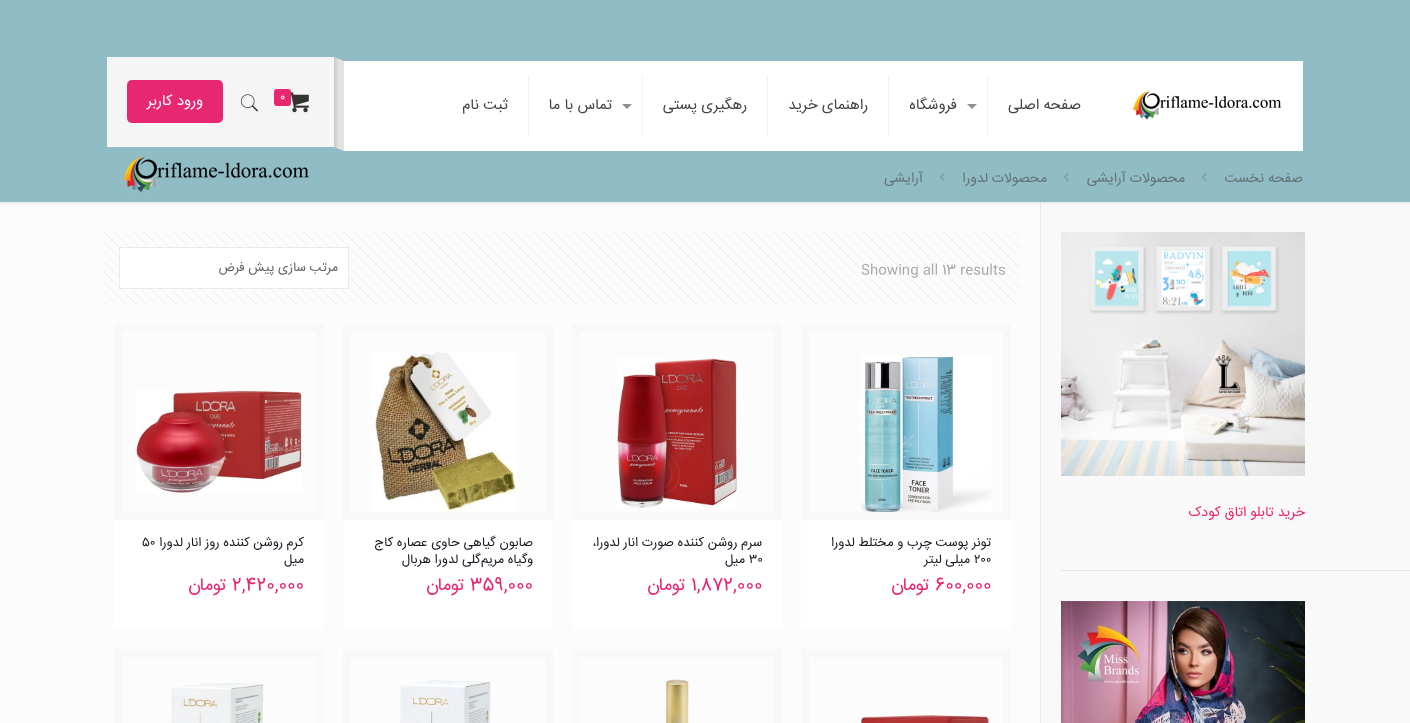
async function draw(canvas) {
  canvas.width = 1410;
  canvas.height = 723;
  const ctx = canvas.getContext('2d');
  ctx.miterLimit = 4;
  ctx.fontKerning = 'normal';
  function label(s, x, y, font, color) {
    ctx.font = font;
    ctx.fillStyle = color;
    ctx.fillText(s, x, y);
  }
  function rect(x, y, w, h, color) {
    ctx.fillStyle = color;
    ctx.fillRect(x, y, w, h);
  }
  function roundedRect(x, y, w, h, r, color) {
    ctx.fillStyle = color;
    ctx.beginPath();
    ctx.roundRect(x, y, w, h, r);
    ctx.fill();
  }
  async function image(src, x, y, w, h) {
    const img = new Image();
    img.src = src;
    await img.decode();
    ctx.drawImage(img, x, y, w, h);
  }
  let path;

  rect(0, 0, 1410, 723, '#fcfcfc');
  await image('assets/img1.png', 0, 0, 1410, 202);
  rect(344, 61, 959, 90, '#fff');
  await image('assets/img2.png', 1133, 91, 148, 29);
  rect(987, 76, 1, 60, '#f2f2f2');
  ctx.direction = 'rtl';
  label('صفحه اصلی', 1081, 109, '15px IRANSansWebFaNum', '#444');
  rect(888, 76, 1, 60, '#f2f2f2');
  ctx.fillStyle = '#8f8f8f';
  path = new Path2D('M967 104H977L972 109Z');
  ctx.fill(path);
  label('فروشگاه', 957, 109, '15px IRANSansWebFaNum', '#444');
  rect(767, 76, 1, 60, '#f2f2f2');
  label('راهنمای خرید', 868, 109, '15px IRANSansWebFaNum', '#444');
  rect(642, 76, 1, 60, '#f2f2f2');
  label('رهگیری پستی', 747, 109, '15px IRANSansWebFaNum', '#444');
  rect(528, 76, 1, 60, '#f2f2f2');
  ctx.fillStyle = '#8f8f8f';
  path = new Path2D('M622 104H632L627 109Z');
  ctx.fill(path);
  label('تماس با ما', 612, 109, '15px IRANSansWebFaNum', '#444');
  label('ثبت نام', 508, 109, '15px IRANSansWebFaNum', '#444');
  rect(107, 57, 227, 90, '#f5f5f5');
  ctx.fillStyle = '#e3e3e3';
  path = new Path2D('M334 57L344 61V151L334 147Z');
  ctx.fill(path);
  await image('assets/img3.png', 334, 57, 4, 91);
  await image('assets/img4.png', 291, 92, 18, 21);
  roundedRect(274, 89, 17, 17, 3, '#e72770');
  ctx.direction = 'ltr';
  label('0', 280, 100, '11px IRANSansWebFaNum', '#fff');
  await image('assets/img5.png', 240, 94, 19, 18);
  roundedRect(127, 80, 96, 43, 5, '#e72770');
  ctx.direction = 'rtl';
  label('ورود کاربر', 203, 105, '15px IRANSansWebFaNum', '#fff');
  label('صفحه نخست', 1303, 182, '14px IRANSansWebFaNum', '#637478');
  await image('assets/img6.png', 1202, 173, 5, 8);
  label('محصولات آرایشی', 1185, 182, '14px IRANSansWebFaNum', '#637478');
  await image('assets/img6.png', 1064, 173, 5, 8);
  label('محصولات لدورا', 1047, 182, '14px IRANSansWebFaNum', '#637478');
  await image('assets/img6.png', 940, 173, 5, 8);
  label('آرایشی', 923, 182, '14px IRANSansWebFaNum', '#637478');
  rect(1040, 202, 1, 521, '#e8e8e8');
  rect(1041, 202, 369, 521, '#f9f9f9');
  await image('assets/img7.png', 0, 202, 1410, 2);
  await image('assets/img8.png', 1061, 232, 244, 244);
  label('خرید تابلو اتاق کودک', 1305, 516, '14px IRANSansWebFaNum', '#e72770');
  rect(1061, 570, 349, 1, '#e5e5e5');
  await image('assets/img9.png', 1061, 601, 244, 122);
  await image('assets/img10.png', 104, 232, 916, 72);
  ctx.direction = 'ltr';
  label('Showing all 13 results', 861, 274, '14px IRANSansWebFaNum', '#a8a8a8');
  ctx.fillStyle = '#fff';
  ctx.beginPath();
  ctx.rect(119.5, 247.5, 229, 41);
  ctx.fill();
  ctx.strokeStyle = '#ebebeb';
  ctx.stroke();
  ctx.direction = 'rtl';
  label('مرتب سازی پیش فرض', 338, 271, '13px IRANSansWebFaNum', '#626262');
  ctx.strokeStyle = '#f8f8f8';
  ctx.lineWidth = 8;
  ctx.strokeRect(805, 328, 202, 188);
  await image('assets/img11.png', 861, 356, 131, 156);
  rect(801, 520, 210, 109, '#fff');
  label('تونر پوست چرب و مختلط لدورا', 991, 546, '13px IRANSansWebFaNum', '#161922');
  ctx.direction = 'ltr';
  label('۲۰۰', 974, 563, '13px IRANSansWebFaNum', '#161922');
  ctx.direction = 'rtl';
  label('میلی لیتر', 970, 563, '13px IRANSansWebFaNum', '#161922');
  ctx.direction = 'ltr';
  label('600,000', 935, 590, '18px IRANSansWebFaNum', '#e72770');
  ctx.direction = 'rtl';
  label('تومان', 930, 590, '18px IRANSansWebFaNum', '#e72770');
  ctx.strokeRect(576, 328, 202, 188);
  await image('assets/img12.png', 617, 358, 120, 150);
  rect(572, 520, 210, 109, '#fff');
  label('سرم روشن کننده صورت انار لدورا،', 762, 546, '13px IRANSansWebFaNum', '#161922');
  ctx.direction = 'ltr';
  label('۳۰', 749, 563, '13px IRANSansWebFaNum', '#161922');
  ctx.direction = 'rtl';
  label('میل', 745, 563, '13px IRANSansWebFaNum', '#161922');
  ctx.direction = 'ltr';
  label('1,872,000', 691, 590, '18px IRANSansWebFaNum', '#e72770');
  ctx.direction = 'rtl';
  label('تومان', 686, 590, '18px IRANSansWebFaNum', '#e72770');
  ctx.strokeRect(347, 328, 202, 188);
  await image('assets/img13.png', 372, 352, 145, 160);
  rect(343, 520, 210, 109, '#fff');
  label('صابون گیاهی حاوی عصاره‌ کاج', 533, 546, '13px IRANSansWebFaNum', '#161922');
  label('وگیاه مریم‌گلی لدورا هربال', 533, 563, '13px IRANSansWebFaNum', '#161922');
  ctx.direction = 'ltr';
  label('359,000', 470, 590, '18px IRANSansWebFaNum', '#e72770');
  ctx.direction = 'rtl';
  label('تومان', 465, 590, '18px IRANSansWebFaNum', '#e72770');
  ctx.strokeRect(118, 328, 202, 188);
  await image('assets/img14.png', 136, 390, 166, 103);
  rect(114, 520, 210, 109, '#fff');
  label('کرم روشن کننده روز انار لدورا', 304, 546, '13px IRANSansWebFaNum', '#161922');
  ctx.direction = 'ltr';
  label('۵۰', 142, 546, '13px IRANSansWebFaNum', '#161922');
  ctx.direction = 'rtl';
  label('میل', 304, 563, '13px IRANSansWebFaNum', '#161922');
  ctx.direction = 'ltr';
  label('2,420,000', 232, 590, '18px IRANSansWebFaNum', '#e72770');
  ctx.direction = 'rtl';
  label('تومان', 227, 590, '18px IRANSansWebFaNum', '#e72770');
  ctx.strokeRect(805, 653, 202, 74);
  await image('assets/img15.png', 861, 715, 128, 8);
  ctx.strokeRect(576, 653, 202, 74);
  await image('assets/img16.png', 665, 679, 24, 44);
  ctx.strokeRect(347, 653, 202, 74);
  await image('assets/img17.png', 400, 680, 91, 43);
  ctx.strokeRect(118, 653, 202, 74);
  await image('assets/img18.png', 171, 683, 93, 40);
}

draw(document.querySelector('canvas'));
